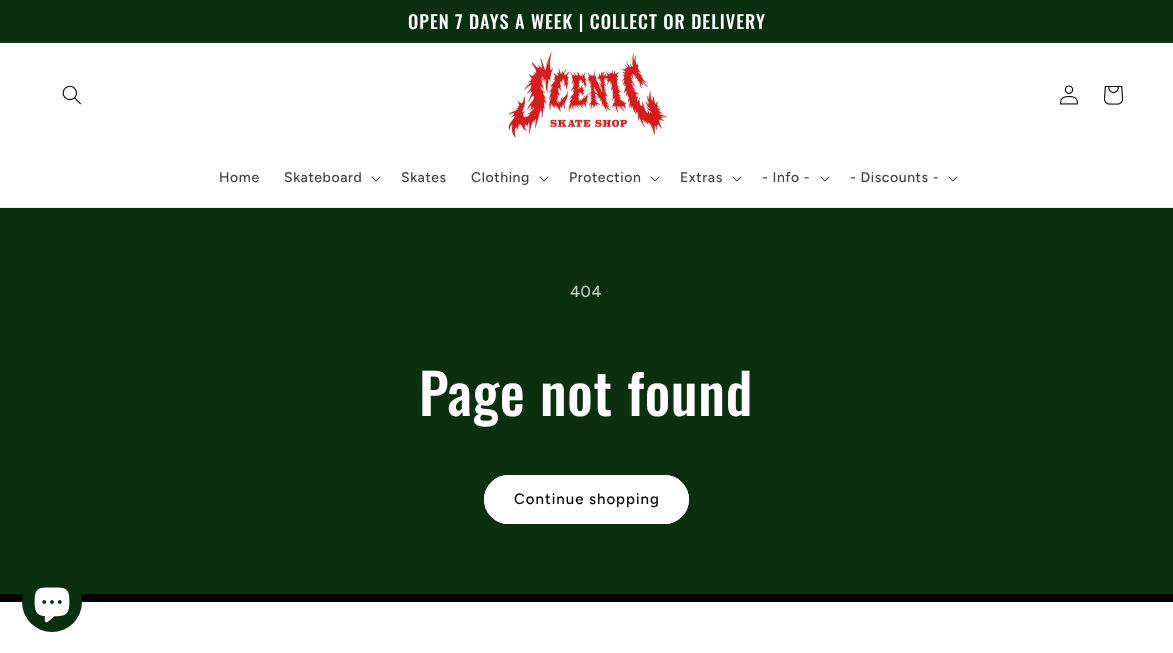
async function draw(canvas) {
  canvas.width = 1173;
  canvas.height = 653;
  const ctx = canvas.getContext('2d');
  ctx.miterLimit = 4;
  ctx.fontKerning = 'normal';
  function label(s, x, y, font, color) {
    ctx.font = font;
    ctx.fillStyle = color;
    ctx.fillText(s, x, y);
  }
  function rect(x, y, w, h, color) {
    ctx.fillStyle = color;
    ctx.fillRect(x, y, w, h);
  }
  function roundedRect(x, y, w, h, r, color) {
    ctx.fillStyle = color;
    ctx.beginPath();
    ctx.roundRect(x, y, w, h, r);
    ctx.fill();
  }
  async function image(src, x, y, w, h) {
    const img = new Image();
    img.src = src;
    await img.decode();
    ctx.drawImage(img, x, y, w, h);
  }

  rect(0, 0, 1173, 653, '#0b300f');
  rect(0, 42, 1173, 1, '#1f4122');
  ctx.letterSpacing = '1px';
  label('OPEN 7 DAYS A WEEK | COLLECT OR DELIVERY', 408, 29, '500 18.25px Oswald', '#fff');
  rect(0, 43, 1173, 164, '#fff');
  rect(0, 207, 1173, 1, '#ebebeb');
  await image('assets/img1.png', 62, 85, 19, 20);
  await image('assets/img2.png', 506, 51, 164, 87);
  await image('assets/img3.png', 1060, 85, 18, 20);
  await image('assets/img4.png', 1104, 86, 20, 19);
  ctx.letterSpacing = '0.6px';
  label('Home', 219, 182, '500 14px Figtree', '#404040');
  label('Skateboard', 284, 182, '500 14px Figtree', '#404040');
  await image('assets/img5.png', 371, 176, 10, 6);
  label('Skates', 401, 182, '500 14px Figtree', '#404040');
  label('Clothing', 471, 182, '500 14px Figtree', '#404040');
  await image('assets/img5.png', 539, 176, 10, 6);
  label('Protection', 569, 182, '500 14px Figtree', '#404040');
  await image('assets/img5.png', 650, 176, 10, 6);
  label('Extras', 680, 182, '500 14px Figtree', '#404040');
  await image('assets/img5.png', 732, 176, 10, 6);
  label('- Info -', 762, 182, '500 14px Figtree', '#404040');
  await image('assets/img5.png', 820, 176, 10, 6);
  label('- Discounts -', 850, 182, '500 14px Figtree', '#404040');
  await image('assets/img5.png', 948, 176, 10, 6);
  label('404', 570, 297, '500 16px Figtree', '#c2cbc3');
  ctx.letterSpacing = '0.8px';
  label('Page not found', 419, 416, '500 56px Oswald', '#fff');
  roundedRect(484, 475, 205, 49, 24.5, '#fff');
  ctx.beginPath();
  ctx.roundRect(485, 476, 203, 47, 23.5);
  ctx.strokeStyle = '#fff';
  ctx.lineWidth = 2;
  ctx.stroke();
  ctx.letterSpacing = '1px';
  label('Continue shopping', 514, 504, '500 15px Figtree', '#000');
  rect(0, 602, 1173, 51, '#fff');
  rect(0, 594, 1173, 8, '#000');
  ctx.fillStyle = '#0b300f';
  ctx.beginPath();
  ctx.arc(52, 602, 30, 0, 2 * Math.PI);
  ctx.fill();
  await image('assets/img6.png', 34, 587, 36, 36);
}

draw(document.querySelector('canvas'));
